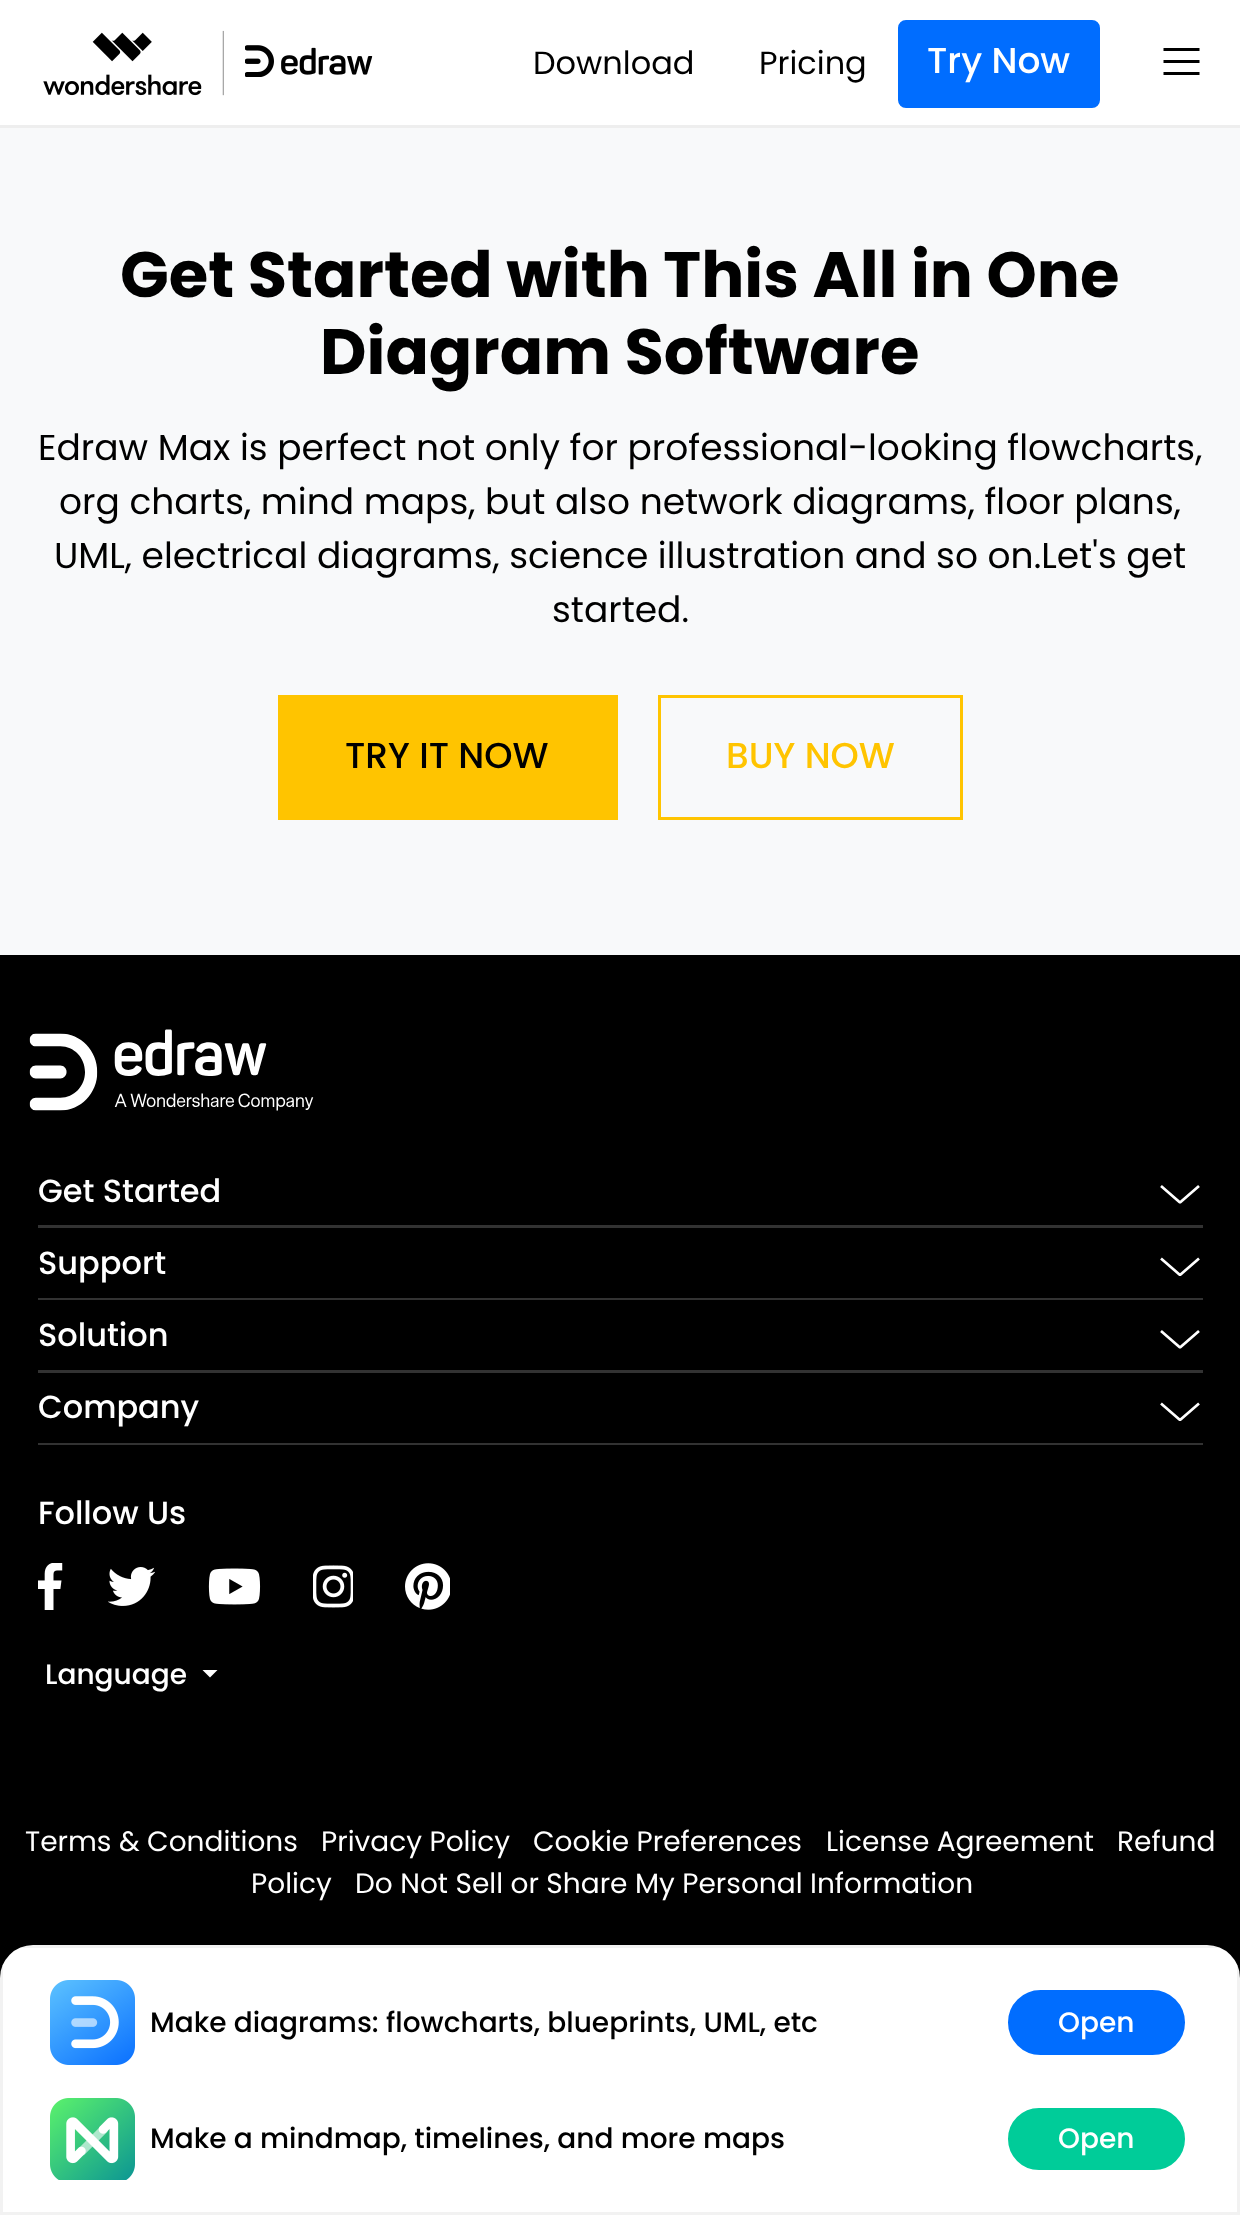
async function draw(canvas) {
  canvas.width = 1240;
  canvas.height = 2215;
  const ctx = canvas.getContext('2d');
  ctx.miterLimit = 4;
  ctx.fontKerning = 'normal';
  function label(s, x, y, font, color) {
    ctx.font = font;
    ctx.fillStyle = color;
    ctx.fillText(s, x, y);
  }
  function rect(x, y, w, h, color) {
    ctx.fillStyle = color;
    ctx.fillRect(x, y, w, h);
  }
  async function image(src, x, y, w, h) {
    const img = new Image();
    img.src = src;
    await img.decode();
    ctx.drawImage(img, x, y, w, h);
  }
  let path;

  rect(0, 0, 1240, 2215, '#000');
  rect(0, 0, 1240, 125, '#fff');
  rect(0, 125, 1240, 3, '#eee');
  await image('assets/img1.png', 43, 30, 330, 66);
  label('Download', 533, 74, '32px Poppins', '#000');
  label('Pricing', 759, 74, '32px Poppins', '#000');
  ctx.fillStyle = '#006dff';
  ctx.beginPath();
  ctx.roundRect(899.5, 21.5, 199, 85, 6.5);
  ctx.fill();
  ctx.strokeStyle = '#006dff';
  ctx.lineWidth = 3;
  ctx.stroke();
  label('Try Now', 927, 73, '500 36px Poppins', '#fff');
  path = new Path2D('M1163.5 49.5H1199.5M1163.5 61.5H1199.5M1163.5 73.5H1199.5');
  ctx.strokeStyle = '#000';
  ctx.lineJoin = 'bevel';
  ctx.stroke(path);
  rect(0, 128, 1240, 827, '#f8f9fa');
  label('Get Started with This All in One', 120, 297, 'bold 64px Poppins', '#000');
  label('Diagram Software', 320, 374, 'bold 64px Poppins', '#000');
  label('Edraw Max is perfect not only for professional-looking flowcharts,', 38, 460, '36px Poppins', '#000');
  label('org charts, mind maps, but also network diagrams, floor plans,', 59, 514, '36px Poppins', '#000');
  label('UML, electrical diagrams, science illustration and so on.Let\'s get', 54, 568, '36px Poppins', '#000');
  label('started.', 552, 622, '36px Poppins', '#000');
  rect(278, 695, 340, 125, '#ffc400');
  label('TRY IT NOW', 345, 768, '500 36px Poppins', '#000');
  ctx.strokeStyle = '#ffc400';
  ctx.lineJoin = 'miter';
  ctx.strokeRect(659.5, 696.5, 302, 122);
  label('BUY NOW', 726, 768, '500 36px Poppins', '#ffc400');
  await image('assets/img2.png', 29, 1029, 285, 82);
  label('Get Started', 38, 1202, '500 32px Poppins', '#fff');
  path = new Path2D('M1199 1186L1180 1202.5L1161 1186');
  ctx.strokeStyle = '#fff';
  ctx.lineWidth = 2.7;
  ctx.lineJoin = 'bevel';
  ctx.stroke(path);
  rect(38, 1225, 1165, 3, '#323232');
  label('Support', 38, 1274, '500 32px Poppins', '#fff');
  path = new Path2D('M1199 1258.5L1180 1275L1161 1258.5');
  ctx.stroke(path);
  rect(38, 1298, 1165, 2, '#323232');
  label('Solution', 38, 1346, '500 32px Poppins', '#fff');
  path = new Path2D('M1199 1331L1180 1347.5L1161 1331');
  ctx.stroke(path);
  rect(38, 1370, 1165, 3, '#323232');
  label('Company', 38, 1418, '500 32px Poppins', '#fff');
  path = new Path2D('M1199 1403.5L1180 1420L1161 1403.5');
  ctx.stroke(path);
  rect(38, 1443, 1165, 2, '#323232');
  label('Follow Us', 38, 1524, '500 32px Poppins', '#fff');
  await image('assets/img3.png', 38, 1563, 25, 47);
  await image('assets/img4.png', 108, 1567, 47, 39);
  await image('assets/img5.png', 208, 1568, 53, 37);
  await image('assets/img6.png', 313, 1565, 40, 43);
  await image('assets/img7.png', 405, 1563, 45, 47);
  label('Language', 45, 1684, '500 28px Poppins', '#fff');
  path = new Path2D('M202.5 1670H217.5L210 1677.5Z');
  ctx.fill(path);
  label('Terms & Conditions', 25, 1851, '28px Poppins', '#fff');
  label('Privacy Policy', 321, 1851, '28px Poppins', '#fff');
  label('Cookie Preferences', 533, 1851, '28px Poppins', '#fff');
  label('License Agreement', 826, 1851, '28px Poppins', '#fff');
  label('Refund', 1117, 1851, '28px Poppins', '#fff');
  label('Policy', 251, 1893, '28px Poppins', '#fff');
  label('Do Not Sell or Share My Personal Information', 355, 1893, '28px Poppins', '#fff');
  ctx.beginPath();
  ctx.roundRect(0, 1945, 1240, 270, [33, 33, 0, 0]);
  ctx.fill();
  ctx.strokeStyle = '#0000000d';
  ctx.lineWidth = 3;
  ctx.lineJoin = 'miter';
  ctx.strokeRect(1.5, 1946.5, 1237, 267);
  await image('assets/img8.png', 50, 1980, 85, 85);
  label('Make diagrams: flowcharts, blueprints, UML, etc', 150, 2032, '500 28px Poppins', '#000');
  ctx.fillStyle = '#006dff';
  ctx.beginPath();
  ctx.roundRect(1009.5, 1991.5, 174, 62, 31);
  ctx.fill();
  ctx.strokeStyle = '#006dff';
  ctx.stroke();
  label('Open', 1058, 2032, '500 28px Poppins', '#fff');
  await image('assets/img9.png', 50, 2098, 85, 82);
  label('Make a mindmap, timelines, and more maps', 150, 2148, '500 28px Poppins', '#000');
  ctx.fillStyle = '#0c9';
  ctx.beginPath();
  ctx.roundRect(1009.5, 2109.5, 174, 59, 29.5);
  ctx.fill();
  ctx.strokeStyle = '#0c9';
  ctx.stroke();
  label('Open', 1058, 2148, '500 28px Poppins', '#fff');
}

draw(document.querySelector('canvas'));
